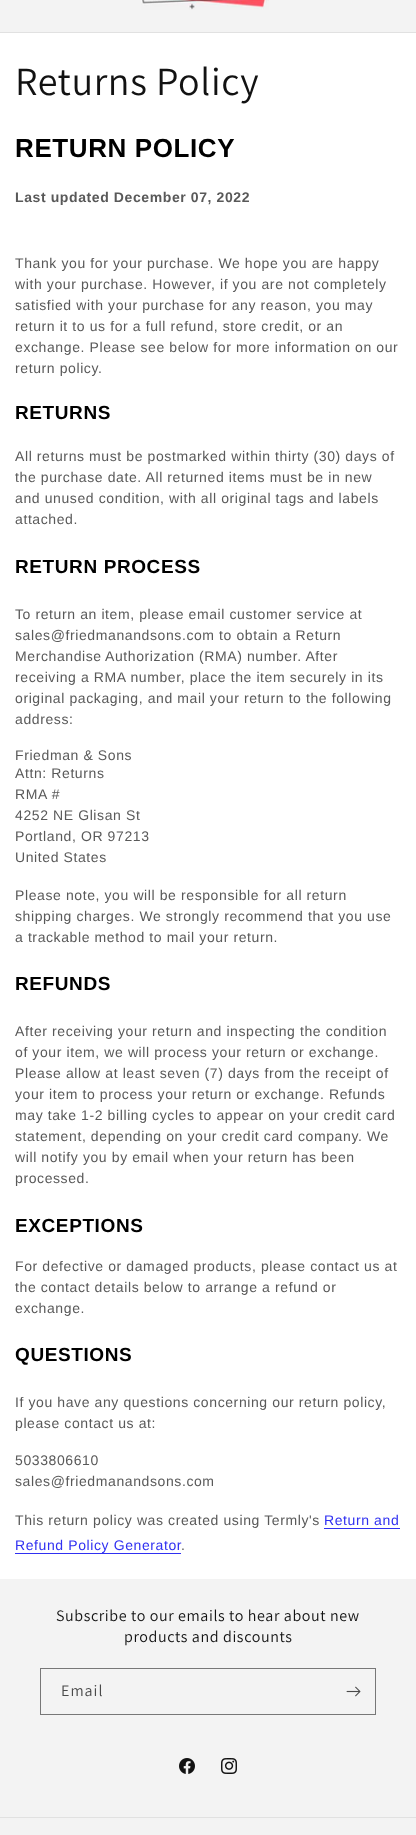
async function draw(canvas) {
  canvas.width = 416;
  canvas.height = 1835;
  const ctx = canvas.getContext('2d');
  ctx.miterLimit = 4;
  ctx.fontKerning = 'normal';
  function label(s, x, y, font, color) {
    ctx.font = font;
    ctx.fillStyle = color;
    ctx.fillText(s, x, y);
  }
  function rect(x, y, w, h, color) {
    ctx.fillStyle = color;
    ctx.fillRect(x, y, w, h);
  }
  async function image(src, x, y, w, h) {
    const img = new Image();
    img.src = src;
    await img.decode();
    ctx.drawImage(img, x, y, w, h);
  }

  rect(0, 0, 416, 1835, '#fff');
  rect(0, 0, 416, 32, '#f3f3f3');
  rect(0, 32, 416, 1, '#e1e1e1');
  await image('assets/img1.png', 141, 0, 128, 10);
  ctx.letterSpacing = '0.6px';
  label('Returns Policy', 15, 95, '40px Assistant', '#121212');
  label('RETURN POLICY', 15, 157, 'bold 26px Liberation Sans', '#000');
  label('Last updated December 07, 2022', 15, 202, 'bold 14px Liberation Sans', '#595959');
  label('Thank you for your purchase. We hope you are happy', 15, 268, '14px Liberation Sans', '#595959');
  label('with your purchase. However, if you are not completely', 15, 289, '14px Liberation Sans', '#595959');
  label('satisfied with your purchase for any reason, you may', 15, 310, '14px Liberation Sans', '#595959');
  label('return it to us for a full refund, store credit, or an', 15, 331, '14px Liberation Sans', '#595959');
  label('exchange. Please see below for more information on our', 15, 352, '14px Liberation Sans', '#595959');
  label('return policy.', 15, 373, '14px Liberation Sans', '#595959');
  label('RETURNS', 15, 419, 'bold 19px Liberation Sans', '#000');
  label('All returns must be postmarked within thirty (30) days of', 15, 461, '14px Liberation Sans', '#595959');
  label('the purchase date. All returned items must be in new', 15, 482, '14px Liberation Sans', '#595959');
  label('and unused condition, with all original tags and labels', 15, 503, '14px Liberation Sans', '#595959');
  label('attached.', 15, 524, '14px Liberation Sans', '#595959');
  label('RETURN PROCESS', 15, 573, 'bold 19px Liberation Sans', '#000');
  label('To return an item, please email customer service at', 15, 619, '14px Liberation Sans', '#595959');
  label('sales@friedmanandsons.com to obtain a Return', 15, 640, '14px Liberation Sans', '#595959');
  label('Merchandise', 15, 661, '14px Liberation Sans', '#595959');
  label('Authorization (RMA) number. After', 105, 661, '14px Liberation Sans', '#595959');
  label('receiving a RMA number, place the item securely in its', 15, 682, '14px Liberation Sans', '#595959');
  label('original packaging, and mail your return to the following', 15, 703, '14px Liberation Sans', '#595959');
  label('address:', 15, 724, '14px Liberation Sans', '#595959');
  label('Friedman & Sons', 15, 760, '14px Liberation Sans', '#595959');
  label('Attn: Returns', 15, 778, '14px Liberation Sans', '#595959');
  label('RMA #', 15, 799, '14px Liberation Sans', '#595959');
  label('4252 NE Glisan St', 15, 820, '14px Liberation Sans', '#595959');
  label('Portland, OR 97213', 15, 841, '14px Liberation Sans', '#595959');
  label('United States', 15, 862, '14px Liberation Sans', '#595959');
  label('Please note, you will be responsible for all return', 15, 900, '14px Liberation Sans', '#595959');
  label('shipping charges. We strongly recommend that you use', 15, 921, '14px Liberation Sans', '#595959');
  label('a trackable method to mail your return.', 15, 942, '14px Liberation Sans', '#595959');
  label('REFUNDS', 15, 990, 'bold 19px Liberation Sans', '#000');
  label('After receiving your return and inspecting the condition', 15, 1036, '14px Liberation Sans', '#595959');
  label('of your item, we will process your return or exchange.', 15, 1057, '14px Liberation Sans', '#595959');
  label('Please allow at least seven (7) days from the receipt of', 15, 1078, '14px Liberation Sans', '#595959');
  label('your item to process your return or exchange. Refunds', 15, 1099, '14px Liberation Sans', '#595959');
  label('may take 1-2 billing cycles to appear on your credit card', 15, 1120, '14px Liberation Sans', '#595959');
  label('statement, depending on your credit card company. We', 15, 1141, '14px Liberation Sans', '#595959');
  label('will notify you by email when your return has been', 15, 1162, '14px Liberation Sans', '#595959');
  label('processed.', 15, 1183, '14px Liberation Sans', '#595959');
  label('EXCEPTIONS', 15, 1232, 'bold 19px Liberation Sans', '#000');
  label('For defective or damaged products, please contact us at', 15, 1271, '14px Liberation Sans', '#595959');
  label('the contact details below to arrange a refund or', 15, 1292, '14px Liberation Sans', '#595959');
  label('exchange.', 15, 1313, '14px Liberation Sans', '#595959');
  label('QUESTIONS', 15, 1361, 'bold 19px Liberation Sans', '#000');
  label('If you have any questions concerning our return policy,', 15, 1407, '14px Liberation Sans', '#595959');
  label('please contact us at:', 15, 1428, '14px Liberation Sans', '#595959');
  label('5033806610', 15, 1465, '14px Liberation Sans', '#595959');
  label('sales@friedmanandsons.com', 15, 1486, '14px Liberation Sans', '#595959');
  label('This return policy was created using Termly\'s', 15, 1525, '14px Liberation Sans', '#595959');
  label('Return and', 324, 1525, '14px Liberation Sans', '#3030f1');
  rect(324, 1528, 76, 1, '#3030f1');
  label('Refund Policy Generator', 15, 1550, '14px Liberation Sans', '#3030f1');
  rect(15, 1553, 166, 1, '#3030f1');
  label('.', 181, 1550, '14px Liberation Sans', '#595959');
  rect(0, 1579, 416, 256, '#f3f3f3');
  label('Subscribe to our emails to hear about new', 56, 1621, '16px Assistant', '#121212');
  label('products and discounts', 124, 1642, '16px Assistant', '#121212');
  ctx.strokeStyle = '#777';
  ctx.strokeRect(40.5, 1668.5, 335, 46);
  ctx.letterSpacing = '1px';
  label('Email', 61, 1696, '16px Assistant', '#4a4a4a');
  await image('assets/img2.png', 346, 1686, 15, 11);
  await image('assets/img3.png', 179, 1758, 16, 16);
  await image('assets/img4.png', 221, 1758, 16, 16);
  rect(0, 1817, 416, 1, '#e1e1e1');
}

draw(document.querySelector('canvas'));
